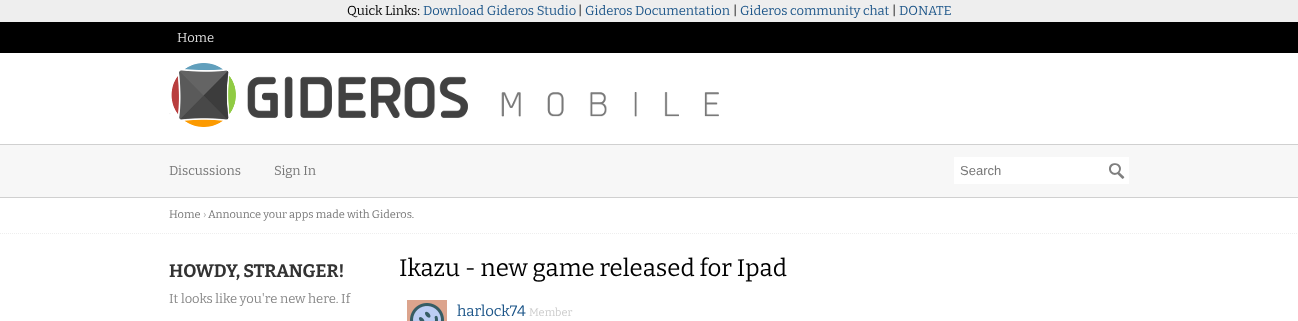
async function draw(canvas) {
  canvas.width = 1298;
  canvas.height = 321;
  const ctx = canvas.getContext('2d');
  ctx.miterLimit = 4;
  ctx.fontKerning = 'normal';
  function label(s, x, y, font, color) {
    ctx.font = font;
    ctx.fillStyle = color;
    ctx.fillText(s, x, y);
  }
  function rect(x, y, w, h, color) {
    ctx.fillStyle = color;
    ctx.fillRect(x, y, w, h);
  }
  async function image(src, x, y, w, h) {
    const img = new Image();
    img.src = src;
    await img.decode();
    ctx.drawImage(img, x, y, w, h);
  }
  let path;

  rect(0, 0, 1298, 321, '#fff');
  rect(0, 0, 1298, 22, '#eee');
  label('Quick Links:', 347, 15, '13px Bitter', '#000');
  label('Download Gideros Studio', 423, 15, '13px Bitter', '#1d5689');
  label('|', 578, 15, '13px Bitter', '#000');
  label('Gideros Documentation', 585, 15, '13px Bitter', '#1d5689');
  label('|', 733, 15, '13px Bitter', '#000');
  label('Gideros community chat', 740, 15, '13px Bitter', '#1d5689');
  label('|', 892, 15, '13px Bitter', '#000');
  label('DONATE', 899, 15, '13px Bitter', '#1d5689');
  rect(0, 22, 1298, 31, '#000');
  label('Home', 177, 42, '13px Bitter', '#ddd');
  await image('assets/img1.png', 169, 63, 550, 64);
  rect(0, 145, 1298, 52, '#f7f7f7');
  rect(0, 144, 1298, 1, '#d0d0d0');
  rect(0, 197, 1298, 1, '#d0d0d0');
  label('Discussions', 169, 175, '13px Bitter', '#777');
  label('Sign In', 274, 175, '13px Bitter', '#777');
  rect(954, 157, 175, 27, '#fff');
  label('Search', 960, 175, '13px Liberation Sans', '#777');
  await image('assets/img2.png', 1109, 163, 16, 16);
  ctx.fillStyle = '#ffffff4d';
  path = new Path2D('M1111 164C1113.5 164 1124 163 1125 165.5C1125 163 1123 163 1121 163H1113C1110 163 1109 163 1109 166C1109 165 1110 164 1111 164Z');
  ctx.fill(path);
  path = new Path2D('M0 233.5H1298');
  ctx.strokeStyle = '#eee';
  ctx.setLineDash([1, 1]);
  ctx.stroke(path);
  label('Home', 169, 218, '11px Bitter', '#777');
  label('›', 203, 218, '11px Bitter', '#aaa');
  label('Announce your apps made with Gideros.', 208, 218, '11px Bitter', '#777');
  label('HOWDY, STRANGER!', 169, 277, 'bold 18px Bitter', '#333');
  label('It looks like you\'re new here. If', 169, 303, '13px Bitter', '#888');
  label('Ikazu - new game released for Ipad', 399, 276, '24px Bitter', '#000');
  await image('assets/img3.png', 407, 300, 40, 21);
  label('harlock74', 457, 316, '15px Bitter', '#1d5689');
  label('Member', 529, 316, '11px Bitter', '#ccc');
}

draw(document.querySelector('canvas'));
